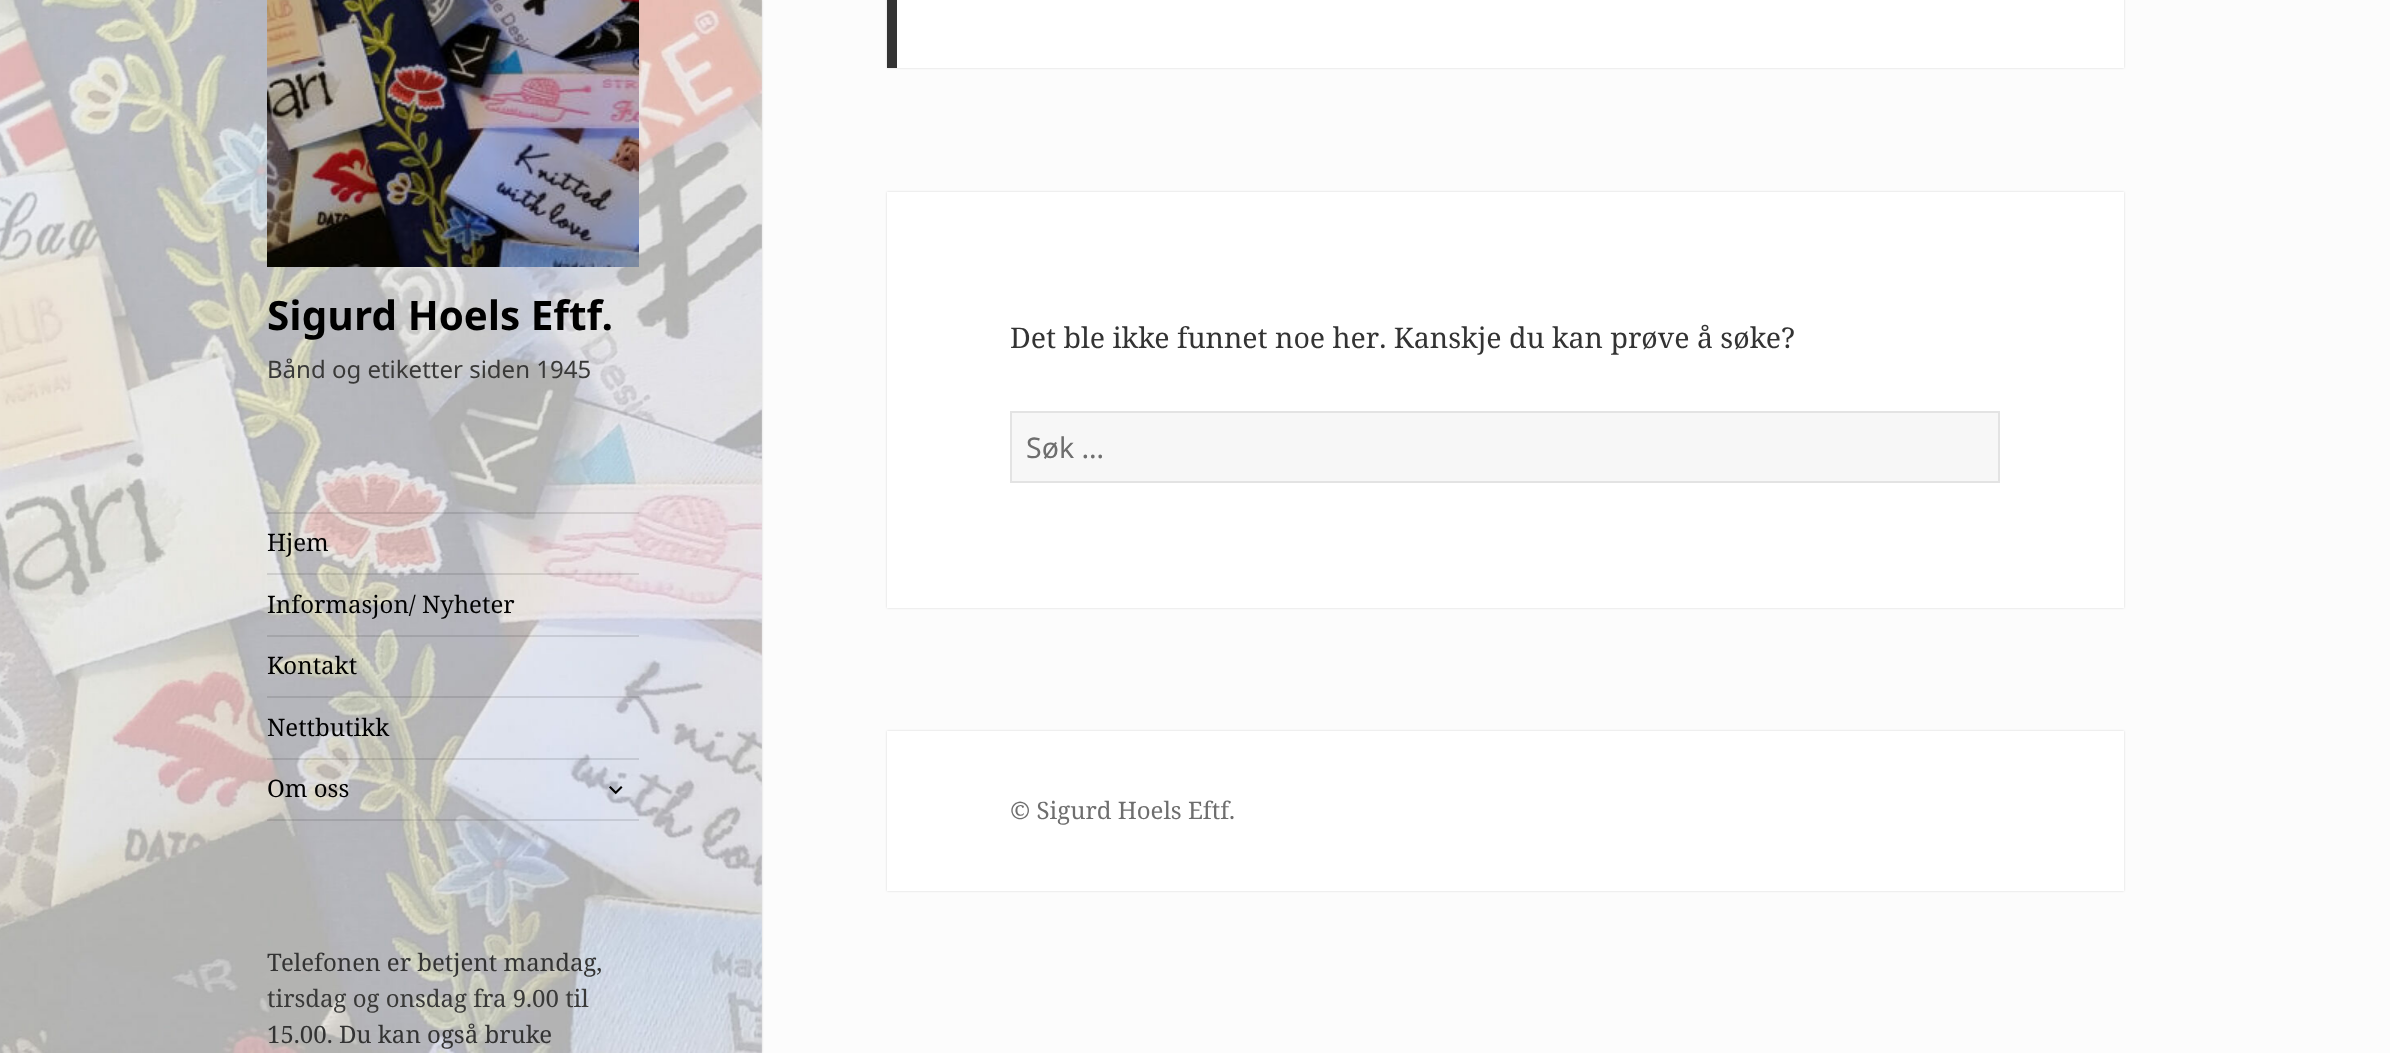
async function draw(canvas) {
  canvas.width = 2390;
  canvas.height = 1053;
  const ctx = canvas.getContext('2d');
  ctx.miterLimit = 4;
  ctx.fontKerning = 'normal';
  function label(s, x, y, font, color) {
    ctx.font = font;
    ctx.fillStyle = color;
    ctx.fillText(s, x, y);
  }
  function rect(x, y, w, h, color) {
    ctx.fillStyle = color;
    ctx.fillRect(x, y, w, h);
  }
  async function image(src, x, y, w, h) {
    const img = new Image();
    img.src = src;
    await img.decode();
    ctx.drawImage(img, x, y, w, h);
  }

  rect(0, 0, 2390, 1053, '#fcfcfc');
  ctx.fillStyle = '#00000026';
  ctx.filter = 'blur(1px)';
  ctx.beginPath();
  ctx.rect(0, 0, 762, 1053);
  ctx.fill();
  ctx.filter = 'none';
  await image('assets/img1.png', 0, 0, 762, 1053);
  await image('assets/img2.png', 267, 0, 372, 267);
  label('Sigurd Hoels Eftf.', 267, 330, 'bold 40.5px Noto Sans', '#000');
  label('Bånd og etiketter siden 1945', 267, 378, '24px Noto Sans', '#393938');
  rect(267, 512, 372, 2, '#0000001a');
  rect(267, 819, 372, 2, '#0000001a');
  label('Hjem', 267, 551, '24px Noto Serif', '#000');
  rect(267, 573, 372, 2, '#0000001a');
  label('Informasjon/ Nyheter', 267, 613, '24px Noto Serif', '#000');
  rect(267, 635, 372, 2, '#0000001a');
  label('Kontakt', 267, 674, '24px Noto Serif', '#000');
  rect(267, 696, 372, 2, '#0000001a');
  label('Nettbutikk', 267, 736, '24px Noto Serif', '#000');
  rect(267, 758, 372, 2, '#0000001a');
  label('Om oss', 267, 797, '24px Noto Serif', '#000');
  await image('assets/img3.png', 609, 786, 14, 9);
  label('Telefonen er betjent mandag,', 267, 971, '24px Noto Serif', '#333');
  label('tirsdag og onsdag fra 9.00 til', 267, 1007, '24px Noto Serif', '#393938');
  label('15.00. Du kan også bruke', 267, 1043, '24px Noto Serif', '#333');
  ctx.fillStyle = '#00000026';
  ctx.filter = 'blur(1px)';
  ctx.beginPath();
  ctx.rect(887, -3, 1237, 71);
  ctx.fill();
  ctx.filter = 'none';
  rect(897, 0, 1227, 68, '#fff');
  rect(887, 0, 10, 68, '#333');
  ctx.fillStyle = '#00000026';
  ctx.filter = 'blur(1px)';
  ctx.beginPath();
  ctx.rect(887, 192, 1237, 416);
  ctx.fill();
  ctx.filter = 'none';
  rect(887, 192, 1237, 416, '#fff');
  label('Det ble ikke funnet noe her. Kanskje du kan prøve å søke?', 1010, 348, '28.5px Noto Serif', '#333');
  ctx.fillStyle = '#f7f7f7';
  ctx.beginPath();
  ctx.rect(1011, 412, 988, 70);
  ctx.fill();
  ctx.strokeStyle = '#e3e3e3';
  ctx.lineWidth = 2;
  ctx.stroke();
  label('Søk …', 1026, 458, '28.5px Noto Sans', '#6e6e6e');
  ctx.fillStyle = '#00000026';
  ctx.filter = 'blur(1px)';
  ctx.beginPath();
  ctx.rect(887, 731, 1237, 160);
  ctx.fill();
  ctx.filter = 'none';
  rect(887, 731, 1237, 160, '#fff');
  label('© Sigurd Hoels Eftf.', 1010, 819, '24px Noto Serif', '#6e6e6e');
}

draw(document.querySelector('canvas'));
